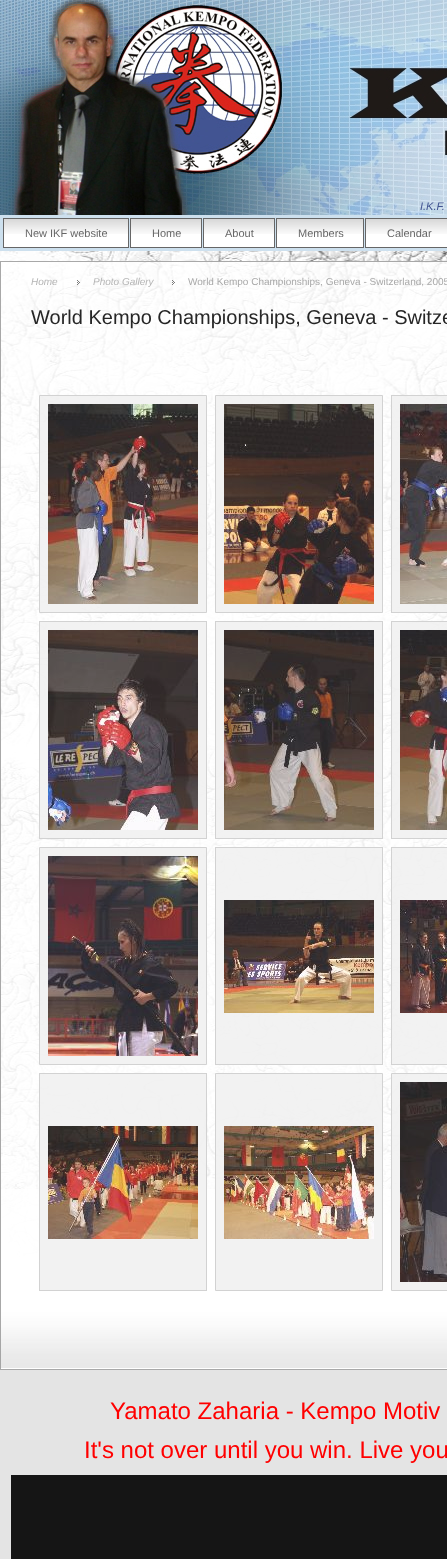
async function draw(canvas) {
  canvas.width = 447;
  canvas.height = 1559;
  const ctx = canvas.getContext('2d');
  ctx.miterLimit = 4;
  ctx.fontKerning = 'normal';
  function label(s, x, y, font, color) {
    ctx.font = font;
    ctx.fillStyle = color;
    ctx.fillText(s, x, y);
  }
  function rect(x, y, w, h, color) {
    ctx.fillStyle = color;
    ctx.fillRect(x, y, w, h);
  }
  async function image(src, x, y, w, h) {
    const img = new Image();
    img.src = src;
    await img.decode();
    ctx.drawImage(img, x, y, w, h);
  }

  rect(0, 0, 447, 1559, '#fff');
  await image('assets/img1.png', 0, 251, 447, 1049);
  await image('assets/img2.png', 290, 0, 157, 215);
  await image('assets/img3.png', 0, 0, 290, 215);
  label('I.K.F.', 420, 210, 'italic 11px Liberation Sans', '#415391');
  rect(0, 215, 447, 36, '#cde0ee');
  rect(4, 234, 124, 13, '#fff');
  await image('assets/img4.png', 4, 219, 124, 15);
  ctx.strokeStyle = '#666';
  ctx.strokeRect(3.5, 218.5, 125, 29);
  label('New IKF website', 25, 237, '11px Liberation Sans', '#666');
  rect(131, 234, 70, 13, '#fff');
  await image('assets/img5.png', 131, 219, 70, 15);
  ctx.strokeRect(130.5, 218.5, 71, 29);
  label('Home', 152, 237, '11px Liberation Sans', '#666');
  rect(204, 234, 70, 13, '#fff');
  await image('assets/img5.png', 204, 219, 70, 15);
  ctx.strokeRect(203.5, 218.5, 71, 29);
  label('About', 225, 237, '11px Liberation Sans', '#666');
  rect(277, 234, 86, 13, '#fff');
  await image('assets/img6.png', 277, 219, 86, 15);
  ctx.strokeRect(276.5, 218.5, 87, 29);
  label('Members', 298, 237, '11px Liberation Sans', '#666');
  rect(366, 234, 81, 13, '#fff');
  await image('assets/img7.png', 366, 219, 81, 15);
  ctx.strokeRect(365.5, 218.5, 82, 29);
  label('Calendar', 387, 237, '11px Liberation Sans', '#666');
  rect(0, 261, 447, 1039, '#ffffffd9');
  await image('assets/img8.png', 0, 1189, 447, 179);
  ctx.strokeStyle = '#999999d9';
  ctx.strokeRect(0.5, 261.5, 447, 1108);
  label('Home', 31, 285, 'italic 10px Liberation Sans', '#b5b5b5');
  await image('assets/img9.png', 77, 280, 3, 5);
  label('Photo Gallery', 93, 285, 'italic 10px Liberation Sans', '#b5b5b5');
  await image('assets/img10.png', 172, 280, 3, 5);
  label('World Kempo Championships, Geneva - Switzerland, 2005', 188, 285, '10px Liberation Sans', '#a8a8a8');
  label('World Kempo Championships, Geneva - Switze', 31, 324, '20px Liberation Sans', '#262626');
  ctx.fillStyle = '#f0f0f0d9';
  ctx.beginPath();
  ctx.rect(39.5, 395.5, 167, 217);
  ctx.fill();
  ctx.strokeStyle = '#d2d2d2';
  ctx.stroke();
  await image('assets/img11.png', 48, 404, 150, 200);
  ctx.beginPath();
  ctx.rect(215.5, 395.5, 167, 217);
  ctx.fill();
  ctx.stroke();
  await image('assets/img12.png', 224, 404, 150, 200);
  rect(391, 395, 56, 218, '#f0f0f0d9');
  ctx.strokeStyle = '#ccccccd9';
  ctx.strokeRect(391.5, 395.5, 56, 217);
  await image('assets/img13.png', 400, 404, 47, 200);
  rect(39, 621, 168, 218, '#f0f0f0d9');
  ctx.strokeRect(39.5, 621.5, 167, 217);
  await image('assets/img14.png', 48, 630, 150, 200);
  rect(215, 621, 168, 218, '#f0f0f0d9');
  ctx.strokeRect(215.5, 621.5, 167, 217);
  await image('assets/img15.png', 224, 630, 150, 200);
  rect(391, 621, 56, 218, '#f0f0f0d9');
  ctx.strokeRect(391.5, 621.5, 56, 217);
  await image('assets/img16.png', 400, 630, 47, 200);
  ctx.beginPath();
  ctx.rect(39.5, 847.5, 167, 217);
  ctx.fill();
  ctx.strokeStyle = '#d2d2d2';
  ctx.stroke();
  await image('assets/img17.png', 48, 856, 150, 200);
  rect(215, 847, 168, 218, '#f0f0f0d9');
  ctx.strokeStyle = '#ccccccd9';
  ctx.strokeRect(215.5, 847.5, 167, 217);
  await image('assets/img18.png', 224, 900, 150, 113);
  rect(391, 847, 56, 218, '#f0f0f0d9');
  ctx.strokeRect(391.5, 847.5, 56, 217);
  await image('assets/img19.png', 400, 900, 47, 113);
  rect(39, 1073, 168, 218, '#f0f0f0d9');
  ctx.strokeRect(39.5, 1073.5, 167, 217);
  await image('assets/img20.png', 48, 1126, 150, 113);
  ctx.beginPath();
  ctx.rect(215.5, 1073.5, 167, 217);
  ctx.fill();
  ctx.strokeStyle = '#d2d2d2';
  ctx.stroke();
  await image('assets/img21.png', 224, 1126, 150, 113);
  ctx.beginPath();
  ctx.rect(391.5, 1073.5, 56, 217);
  ctx.fill();
  ctx.stroke();
  await image('assets/img22.png', 400, 1082, 47, 200);
  rect(0, 1370, 447, 189, '#e4e4e4');
  label('Yamato Zaharia - Kempo Motiv', 110, 1419, '24px Liberation Sans', '#f00');
  label('It\'s not over until you win. Live you', 84, 1458, '24px Liberation Sans', '#f00');
  rect(11, 1475, 436, 84, '#151515');
}

draw(document.querySelector('canvas'));
